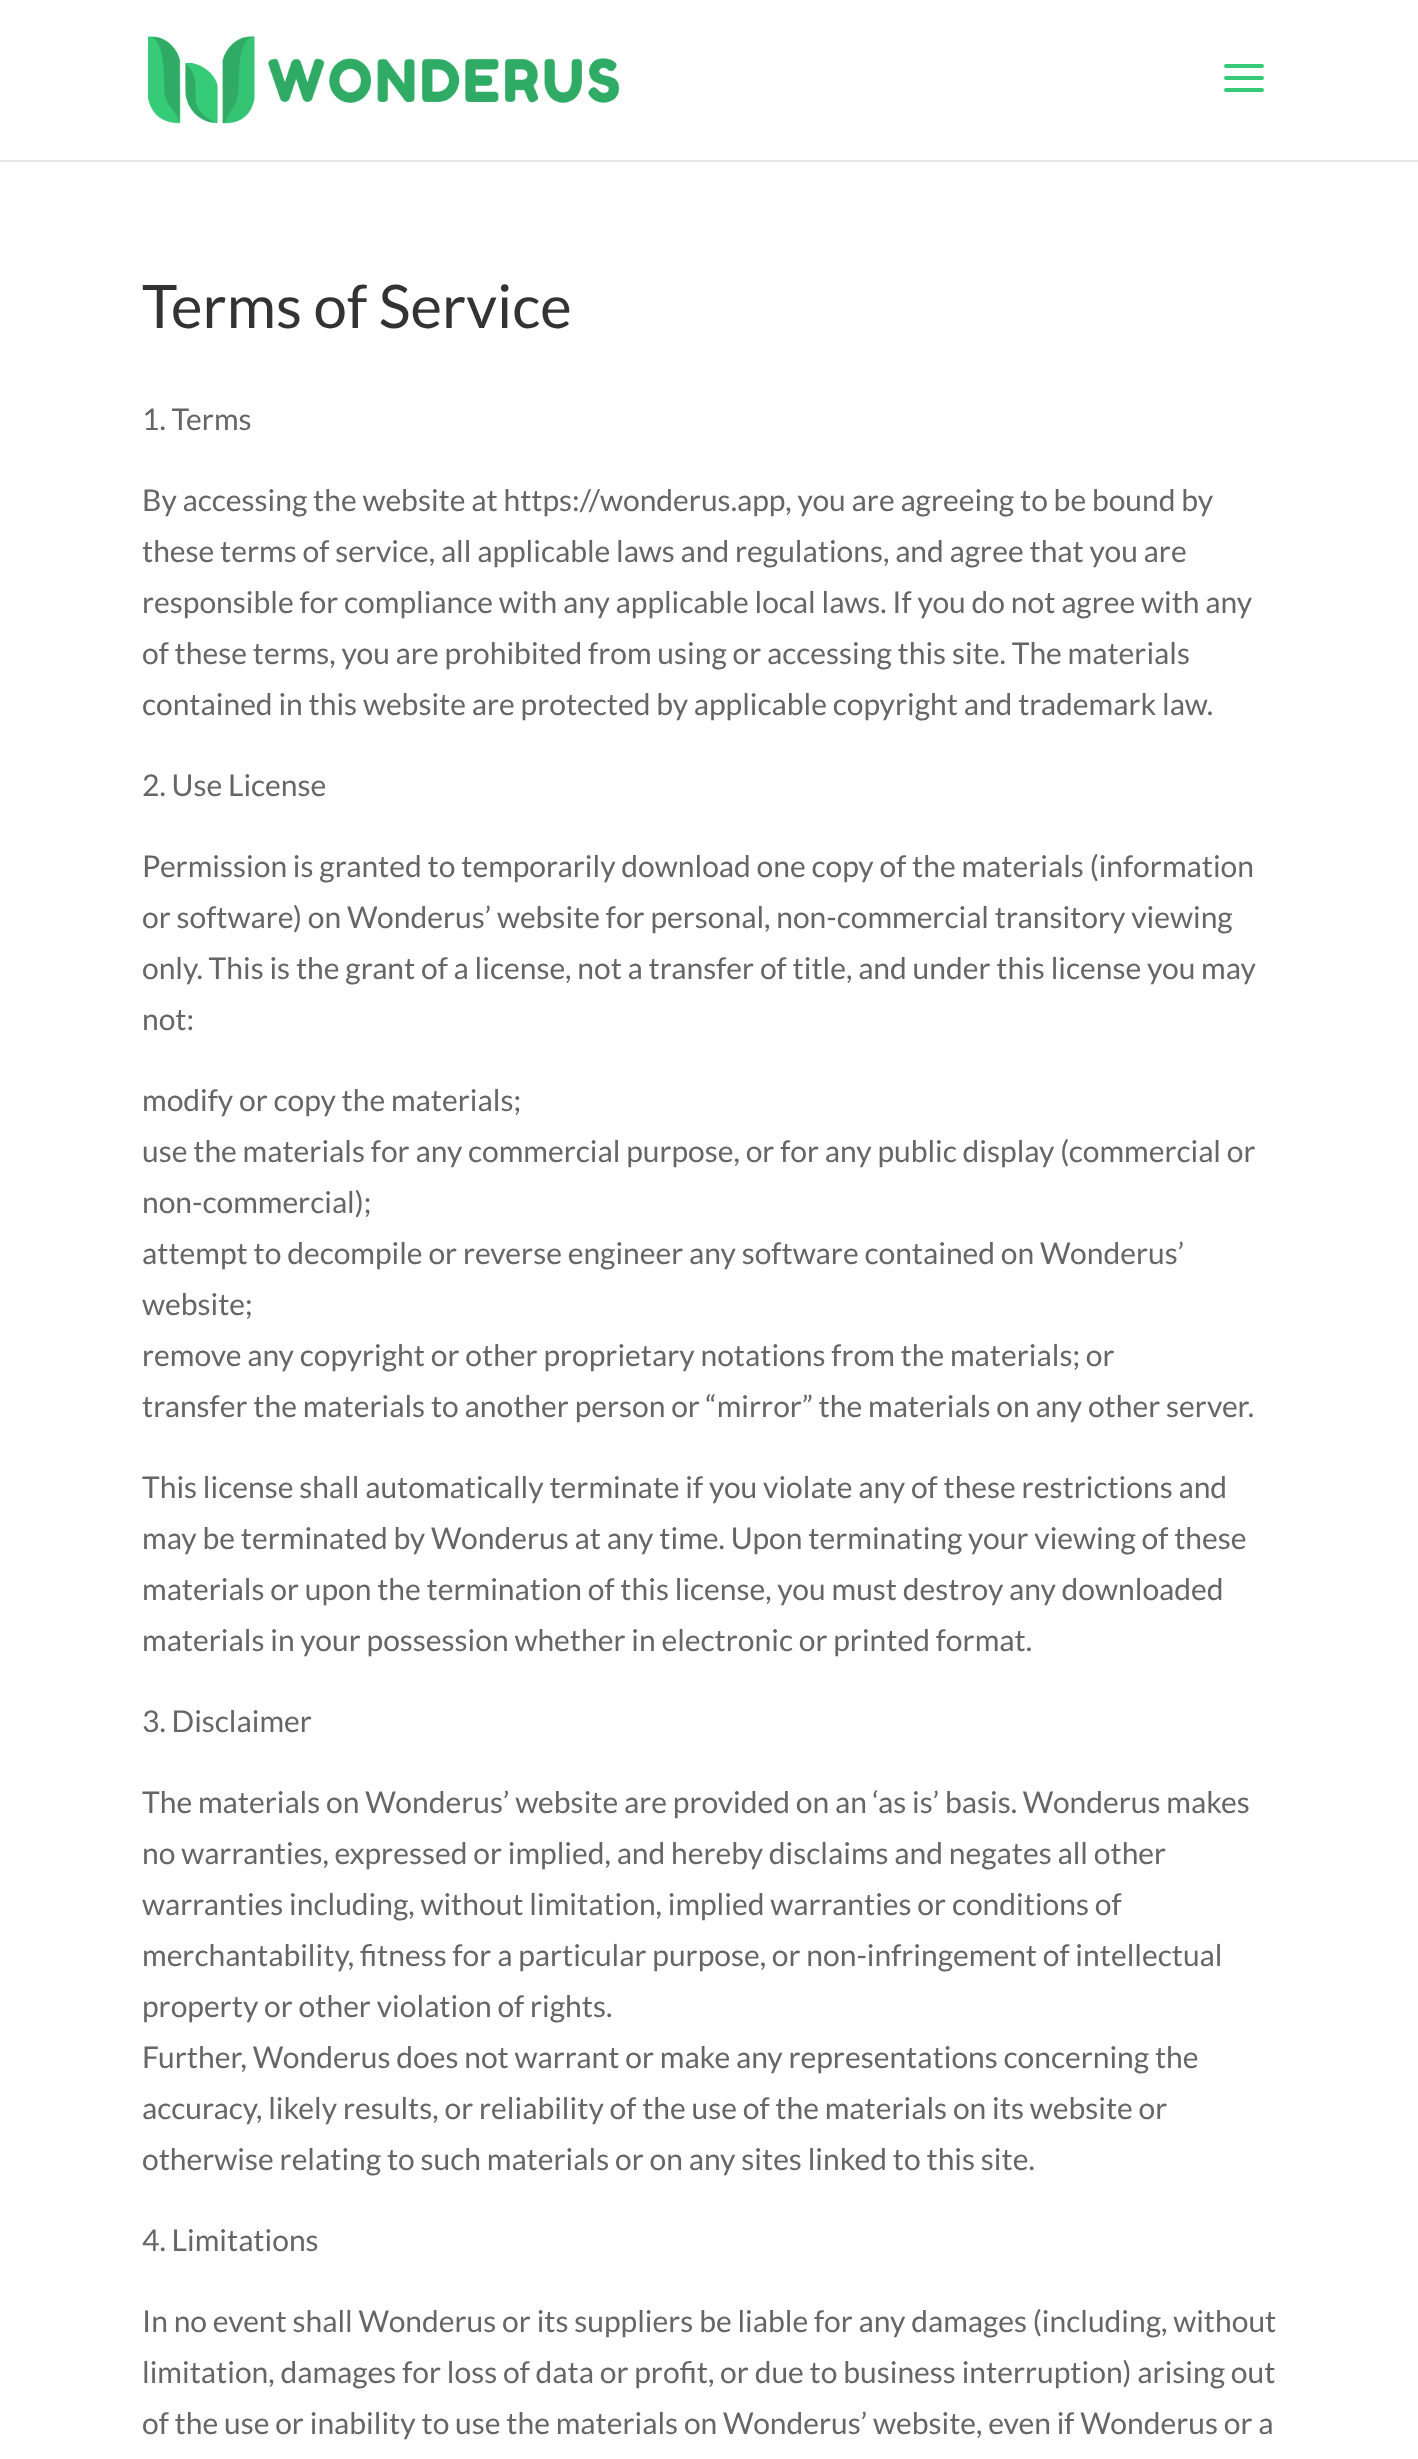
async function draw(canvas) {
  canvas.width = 1418;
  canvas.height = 2459;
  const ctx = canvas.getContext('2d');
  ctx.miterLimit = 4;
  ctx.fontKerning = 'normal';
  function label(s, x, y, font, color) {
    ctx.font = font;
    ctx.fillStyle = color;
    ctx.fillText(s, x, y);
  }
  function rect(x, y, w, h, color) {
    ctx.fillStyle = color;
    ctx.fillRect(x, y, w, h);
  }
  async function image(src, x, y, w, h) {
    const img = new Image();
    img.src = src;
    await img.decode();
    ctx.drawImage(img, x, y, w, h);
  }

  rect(0, 0, 1418, 2459, '#fff');
  rect(0, 160, 1418, 2, '#e6e6e6');
  await image('assets/img1.png', 148, 36, 472, 88);
  await image('assets/img2.png', 1224, 64, 40, 28);
  label('Terms of Service', 142, 328, '60px Lato', '#333');
  label('1. Terms', 142, 430, '30px Lato', '#666');
  label('By accessing the website at https://wonderus.app, you are agreeing to be bound by', 142, 511, '30px Lato', '#666');
  label('these terms of service, all applicable laws and regulations, and agree that you are', 142, 562, '30px Lato', '#666');
  label('responsible for compliance with any applicable local laws. If you do not agree with any', 142, 613, '30px Lato', '#666');
  label('of these terms, you are prohibited from using or accessing this site. The materials', 142, 664, '30px Lato', '#666');
  label('contained in this website are protected by applicable copyright and trademark law.', 142, 715, '30px Lato', '#666');
  label('2. Use License', 142, 796, '30px Lato', '#666');
  label('Permission is granted to temporarily download one copy of the materials (information', 142, 877, '30px Lato', '#666');
  label('or software) on Wonderus’ website for personal, non-commercial transitory viewing', 142, 928, '30px Lato', '#666');
  label('only. This is the grant of a license, not a transfer of title, and under this license you may', 142, 979, '30px Lato', '#666');
  label('not:', 142, 1030, '30px Lato', '#666');
  label('modify or copy the materials;', 142, 1111, '30px Lato', '#666');
  label('use the materials for any commercial purpose, or for any public display (commercial or', 142, 1162, '30px Lato', '#666');
  label('non-commercial);', 142, 1213, '30px Lato', '#666');
  label('attempt to decompile or reverse engineer any software contained on Wonderus’', 142, 1264, '30px Lato', '#666');
  label('website;', 142, 1315, '30px Lato', '#666');
  label('remove any copyright or other proprietary notations from the materials; or', 142, 1366, '30px Lato', '#666');
  label('transfer the materials to another person or “mirror” the materials on any other server.', 142, 1417, '30px Lato', '#666');
  label('This license shall automatically terminate if you violate any of these restrictions and', 142, 1498, '30px Lato', '#666');
  label('may be terminated by Wonderus at any time. Upon terminating your viewing of these', 142, 1549, '30px Lato', '#666');
  label('materials or upon the termination of this license, you must destroy any downloaded', 142, 1600, '30px Lato', '#666');
  label('materials in your possession whether in electronic or printed format.', 142, 1651, '30px Lato', '#666');
  label('3. Disclaimer', 142, 1732, '30px Lato', '#666');
  label('The materials on Wonderus’ website are provided on an ‘as is’ basis. Wonderus makes', 142, 1813, '30px Lato', '#666');
  label('no warranties, expressed or implied, and hereby disclaims and negates all other', 142, 1864, '30px Lato', '#666');
  label('warranties including, without limitation, implied warranties or conditions of', 142, 1915, '30px Lato', '#666');
  label('merchantability, fitness for a particular purpose, or non-infringement of intellectual', 142, 1966, '30px Lato', '#666');
  label('property or other violation of rights.', 142, 2017, '30px Lato', '#666');
  label('Further, Wonderus does not warrant or make any representations concerning the', 142, 2068, '30px Lato', '#666');
  label('accuracy, likely results, or reliability of the use of the materials on its website or', 142, 2119, '30px Lato', '#666');
  label('otherwise relating to such materials or on any sites linked to this site.', 142, 2170, '30px Lato', '#666');
  label('4. Limitations', 142, 2251, '30px Lato', '#666');
  label('In no event shall Wonderus or its suppliers be liable for any damages (including, without', 142, 2332, '30px Lato', '#666');
  label('limitation, damages for loss of data or profit, or due to business interruption) arising out', 142, 2383, '30px Lato', '#666');
  label('of the use or inability to use the materials on Wonderus’ website, even if Wonderus or a', 142, 2434, '30px Lato', '#666');
}

draw(document.querySelector('canvas'));
